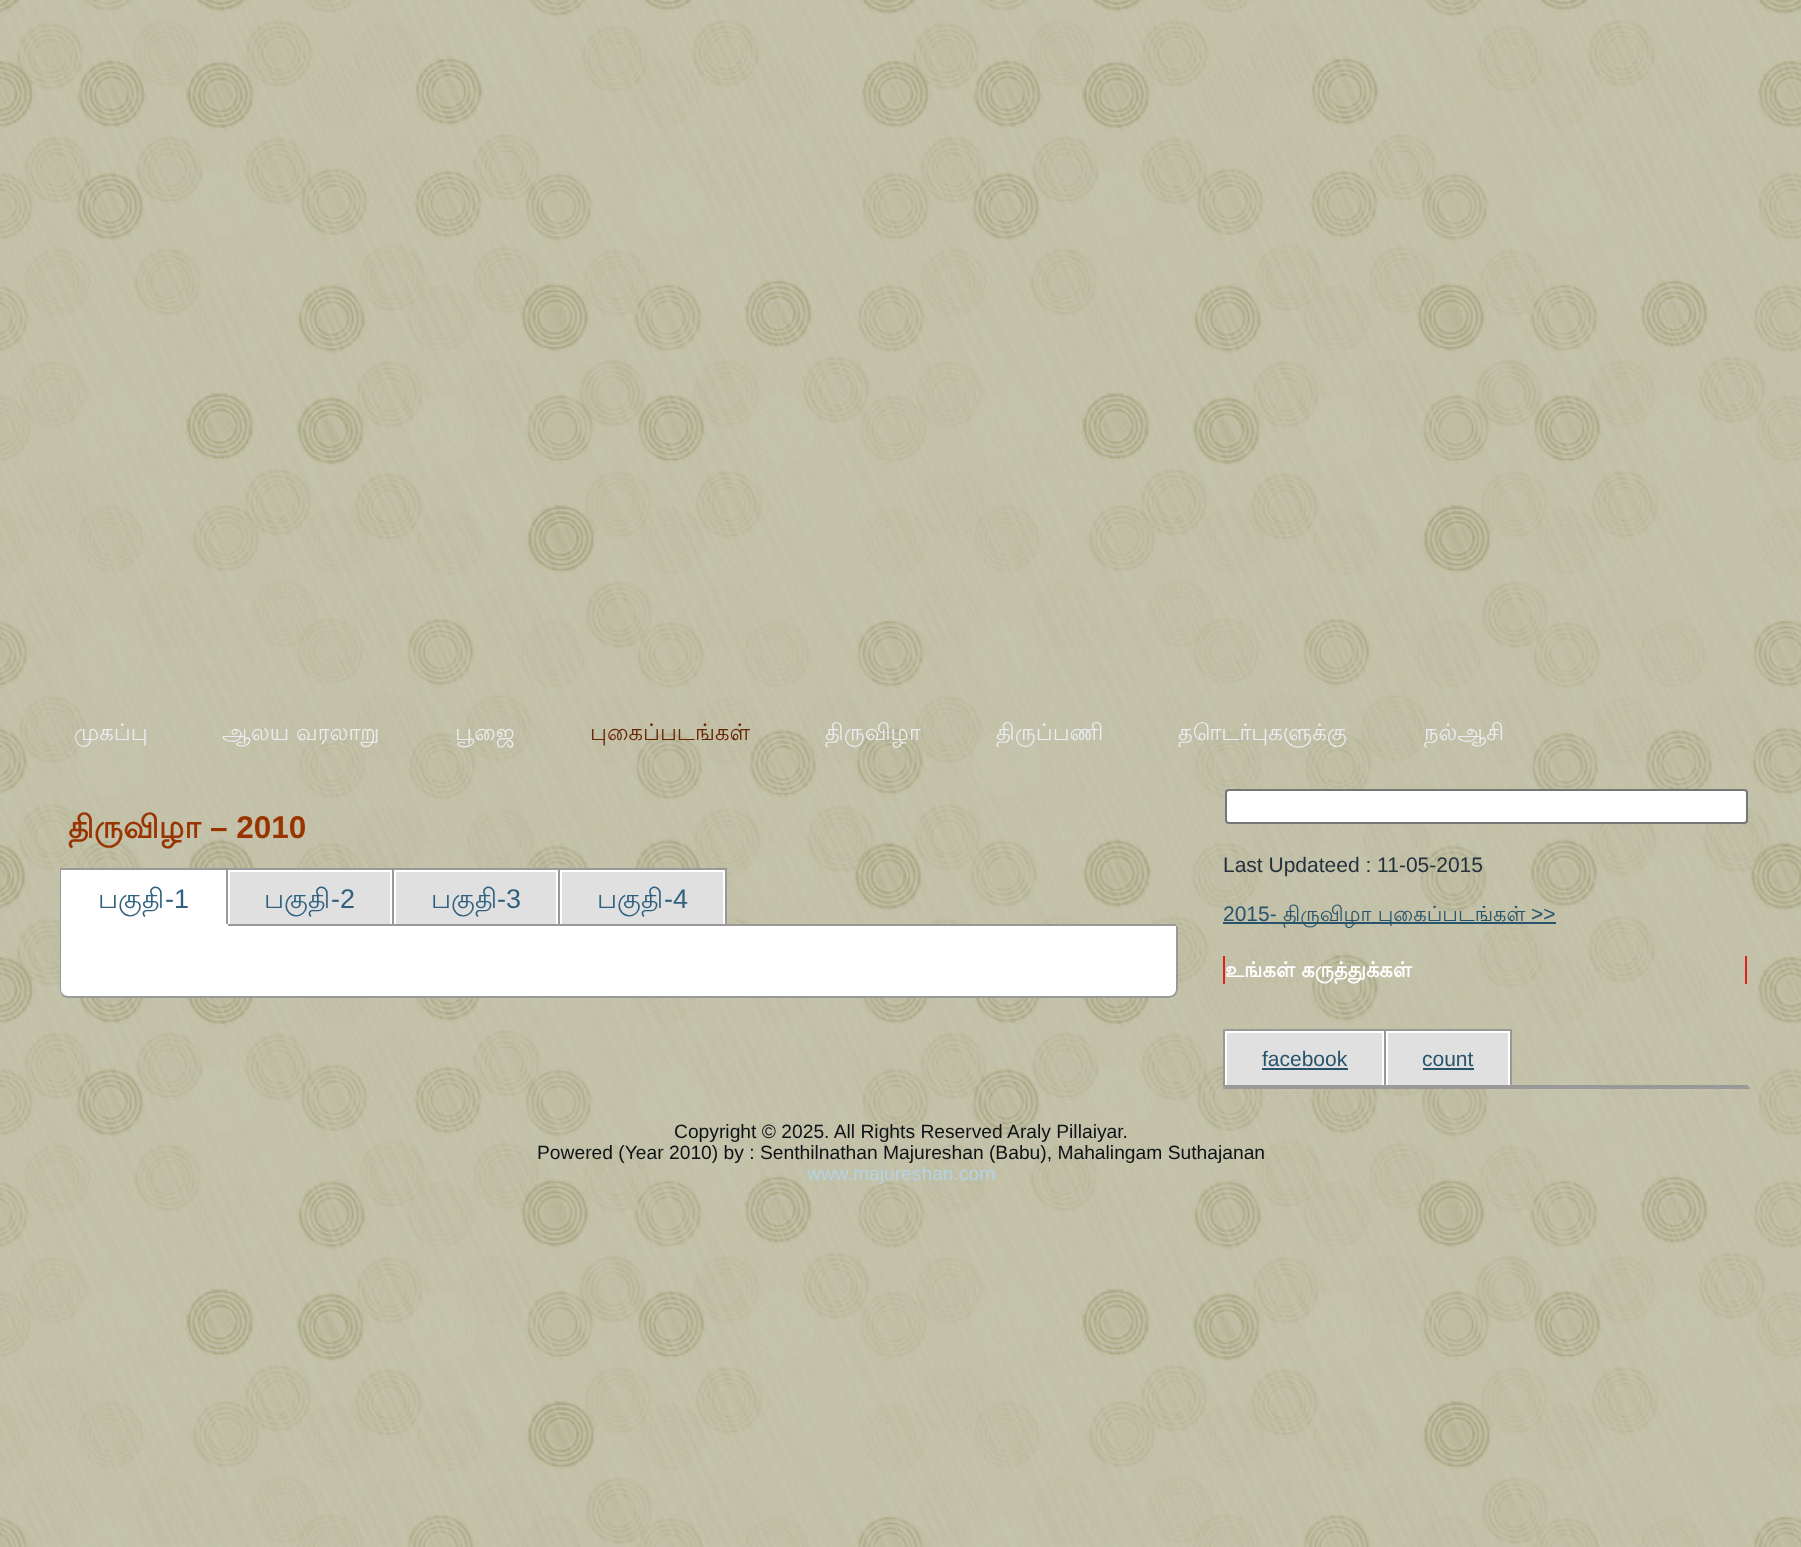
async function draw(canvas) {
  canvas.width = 1801;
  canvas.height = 1547;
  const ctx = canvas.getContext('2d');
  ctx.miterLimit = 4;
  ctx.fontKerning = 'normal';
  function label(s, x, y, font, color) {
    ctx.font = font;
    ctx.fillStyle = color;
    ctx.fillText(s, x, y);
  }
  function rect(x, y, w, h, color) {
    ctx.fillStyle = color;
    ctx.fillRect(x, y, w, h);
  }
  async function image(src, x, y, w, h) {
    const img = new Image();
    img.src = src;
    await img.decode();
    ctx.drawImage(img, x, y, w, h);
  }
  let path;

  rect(0, 0, 1801, 1547, '#fff');
  await image('assets/img1.png', 0, 0, 1801, 1547);
  label('முகப்பு', 74, 740, '22.75px Lohit Tamil', '#e9edf2');
  label('ஆலய வரலாறு', 222, 740, '22.75px Lohit Tamil', '#e9edf2');
  label('பூஜை', 455, 740, '22.75px Lohit Tamil', '#e9edf2');
  label('புகைப்படங்கள்', 590, 740, '22.75px Lohit Tamil', '#692402');
  label('திருவிழா', 825, 740, '22.75px Lohit Tamil', '#e9edf2');
  label('திருப்பணி', 996, 740, '22.75px Lohit Tamil', '#e9edf2');
  label('தொடர்புகளுக்கு', 1178, 740, '22.75px Lohit Tamil', '#e9edf2');
  label('நல்ஆசி', 1424, 740, '22.75px Lohit Tamil', '#e9edf2');
  label('திருவிழா', 68, 838, 'bold 31.5px Lohit Tamil', '#930');
  label('– 2010', 210, 838, 'bold 31.5px Liberation Sans', '#930');
  rect(727, 924, 449, 2, '#999');
  rect(60, 868, 1, 58, '#999');
  rect(61, 870, 165, 54, '#fff');
  rect(61, 868, 665, 2, '#999');
  rect(226, 868, 2, 58, '#999');
  rect(61, 924, 167, 2, '#fff');
  label('பகுதி', 98, 908, '27px Lohit Tamil', '#2f617f');
  label('-1', 165, 908, '27px Liberation Sans', '#2f617f');
  rect(230, 872, 160, 52, '#e0e0e0');
  rect(392, 868, 2, 58, '#999');
  rect(228, 924, 166, 2, '#999');
  ctx.fillStyle = '#fff';
  ctx.beginPath();
  ctx.roundRect(60, 926, 1118, 72, [0, 0, 9, 9]);
  ctx.fill();
  ctx.fillStyle = '#999';
  path = new Path2D('M60 926H1178V989C1178 994 1174 998 1169 998H68C63 998 60 994 60 989ZM61 926H1176V989C1176 993 1173 996 1169 996H68C64 996 61 993 61 989Z');
  ctx.fill(path, 'evenodd');
  ctx.save();
  ctx.beginPath();
  ctx.rect(228, 870, 164, 54);
  ctx.clip();
  ctx.strokeStyle = '#fff';
  ctx.lineWidth = 2;
  ctx.strokeRect(229, 871, 162, 56);
  ctx.restore();
  label('பகுதி', 264, 908, '27px Lohit Tamil', '#2f617f');
  label('-2', 331, 908, '27px Liberation Sans', '#2f617f');
  rect(396, 872, 160, 52, '#e0e0e0');
  rect(558, 868, 2, 58, '#999');
  rect(394, 924, 166, 2, '#999');
  ctx.save();
  ctx.beginPath();
  ctx.rect(394, 870, 164, 54);
  ctx.clip();
  ctx.strokeStyle = '#fff';
  ctx.lineWidth = 2;
  ctx.strokeRect(395, 871, 162, 56);
  ctx.restore();
  label('பகுதி', 431, 908, '27px Lohit Tamil', '#2f617f');
  label('-3', 497, 908, '27px Liberation Sans', '#2f617f');
  rect(562, 872, 161, 52, '#e0e0e0');
  rect(725, 868, 2, 58, '#999');
  rect(560, 924, 166, 2, '#999');
  ctx.save();
  ctx.beginPath();
  ctx.rect(560, 870, 165, 54);
  ctx.clip();
  ctx.strokeStyle = '#fff';
  ctx.lineWidth = 2;
  ctx.strokeRect(561, 871, 163, 56);
  ctx.restore();
  label('பகுதி', 597, 908, '27px Lohit Tamil', '#2f617f');
  label('-4', 664, 908, '27px Liberation Sans', '#2f617f');
  ctx.fillStyle = '#fff';
  ctx.beginPath();
  ctx.roundRect(1226, 790, 521, 33, 3);
  ctx.fill();
  ctx.strokeStyle = '#767676';
  ctx.lineWidth = 2;
  ctx.stroke();
  label('Last Updateed : 11-05-2015', 1223, 872, '21px Liberation Sans', '#24303d');
  label('2015-', 1223, 921, '21px Liberation Sans', '#28536c');
  rect(1223, 922, 333, 2, '#28536c');
  label('திருவிழா புகைப்படங்கள்', 1283, 921, '21px Lohit Tamil', '#28536c');
  label('>>', 1531, 921, '21px Liberation Sans', '#28536c');
  rect(1745, 956, 2, 28, '#e41e1f');
  rect(1223, 956, 2, 28, '#e41e1f');
  label('உங்கள் கருத்துக்கள்', 1225, 977, 'bold 21px Lohit Tamil', '#fff');
  rect(1512, 1085, 236, 2, '#999');
  rect(1223, 1029, 2, 58, '#999');
  rect(1227, 1033, 155, 52, '#e0e0e0');
  rect(1225, 1029, 287, 2, '#999');
  rect(1384, 1029, 2, 58, '#999');
  rect(1225, 1085, 161, 2, '#999');
  rect(1225, 1087, 525, 2, '#999');
  ctx.save();
  ctx.beginPath();
  ctx.rect(1225, 1031, 159, 54);
  ctx.clip();
  ctx.strokeStyle = '#fff';
  ctx.strokeRect(1226, 1032, 157, 56);
  ctx.restore();
  label('facebook', 1262, 1066, '21px Liberation Sans', '#28536c');
  rect(1262, 1068, 86, 2, '#28536c');
  rect(1388, 1033, 120, 52, '#e0e0e0');
  rect(1510, 1029, 2, 58, '#999');
  rect(1386, 1085, 126, 2, '#999');
  ctx.save();
  ctx.beginPath();
  ctx.rect(1386, 1031, 124, 54);
  ctx.clip();
  ctx.strokeStyle = '#fff';
  ctx.strokeRect(1387, 1032, 122, 56);
  ctx.restore();
  label('count', 1422, 1066, '21px Liberation Sans', '#28536c');
  rect(1423, 1068, 51, 2, '#28536c');
  ctx.fillStyle = '#999';
  ctx.beginPath();
  ctx.arc(1224, 1088, 1, 0, 2 * Math.PI);
  ctx.fill();
  label('Copyright © 2025. All Rights Reserved Araly Pillaiyar.', 674, 1138, '19.25px Liberation Sans', '#0d1216');
  label('Powered (Year 2010) by : Senthilnathan Majureshan (Babu), Mahalingam Suthajanan', 537, 1159, '19.25px Liberation Sans', '#0d1216');
  label('www.majureshan.com', 807, 1180, '19.25px Liberation Sans', '#b5d2e3');
}

draw(document.querySelector('canvas'));
